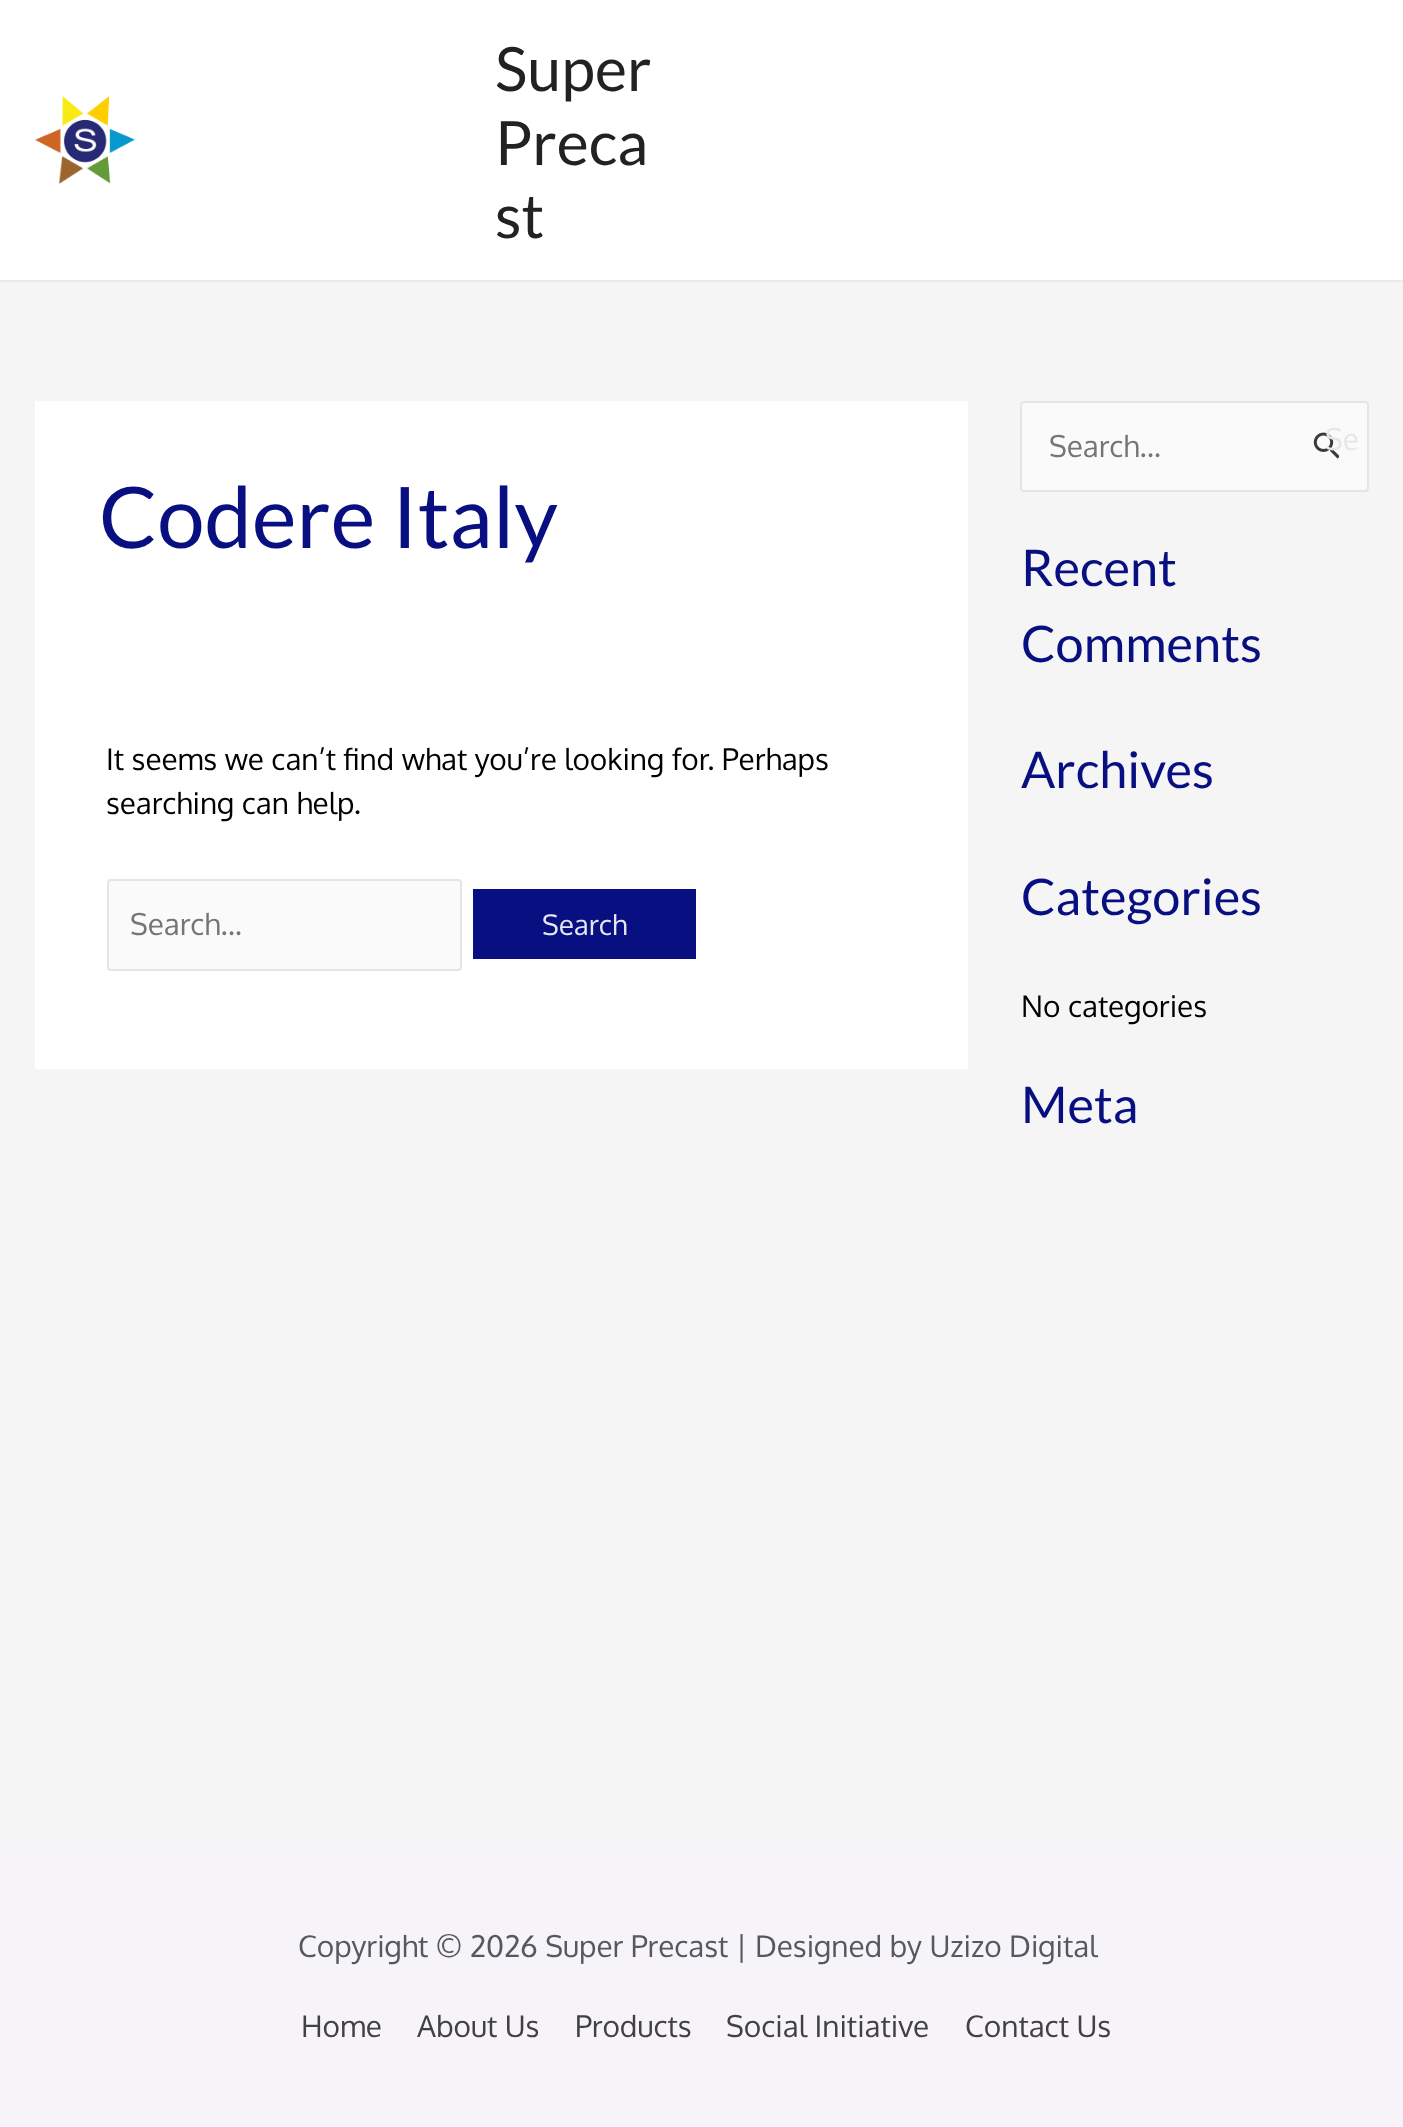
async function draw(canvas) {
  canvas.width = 1403;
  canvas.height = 2127;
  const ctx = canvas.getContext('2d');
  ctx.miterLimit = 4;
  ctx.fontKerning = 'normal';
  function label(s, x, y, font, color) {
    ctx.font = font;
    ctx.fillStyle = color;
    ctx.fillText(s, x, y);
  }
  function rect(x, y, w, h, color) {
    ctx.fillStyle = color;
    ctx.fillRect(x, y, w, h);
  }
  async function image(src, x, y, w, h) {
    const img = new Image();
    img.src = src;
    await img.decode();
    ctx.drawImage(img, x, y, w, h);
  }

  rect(0, 0, 1403, 2127, '#f5f5f5');
  rect(0, 0, 1403, 280, '#fff');
  rect(0, 280, 1403, 2, '#eaeaea');
  await image('assets/img1.png', 35, 96, 100, 88);
  label('Super', 495, 91, '61px Lato', '#222');
  label('Preca', 495, 165, '61px Lato', '#222');
  label('st', 495, 238, '61px Lato', '#222');
  rect(35, 401, 933, 668, '#fff');
  label('Codere Italy', 99, 548, '85px Lato', '#080f81');
  label('It seems we can’t find what you’re looking for. Perhaps', 106, 770, '29.75px Oxygen', '#000');
  label('searching can help.', 106, 814, '29.75px Oxygen', '#000');
  ctx.fillStyle = '#fafafa';
  ctx.beginPath();
  ctx.roundRect(108, 880, 353, 90, 3);
  ctx.fill();
  ctx.strokeStyle = '#e5e5e5';
  ctx.lineWidth = 2;
  ctx.stroke();
  label('Search...', 130, 935, '29.75px Oxygen', '#757575');
  rect(473, 889, 223, 70, '#080f81');
  label('Search', 542, 935, '28px Oxygen', '#e6e7f2');
  ctx.fillStyle = '#fafafa';
  ctx.beginPath();
  ctx.roundRect(1021, 402, 347, 89, 3);
  ctx.fill();
  ctx.stroke();
  label('Search...', 1049, 457, '29.75px Oxygen', '#757575');
  await image('assets/img2.png', 1313, 432, 26, 27);
  label('Se', 1325, 450, '29.75px Oxygen', '#e7e7e7');
  label('Recent', 1021, 586, '50.5px Lato', '#080f81');
  label('Comments', 1021, 662, '50.5px Lato', '#080f81');
  label('Archives', 1021, 788, '50.5px Lato', '#080f81');
  label('Categories', 1021, 915, '50.5px Lato', '#080f81');
  label('No categories', 1021, 1017, '29.75px Oxygen', '#000');
  label('Meta', 1021, 1123, '50.5px Lato', '#080f81');
  rect(0, 1845, 1403, 282, '#f6f4f8');
  label('Copyright © 2026 Super Precast | Designed by Uzizo Digital', 298, 1957, '29.75px Oxygen', '#54595f');
  label('Home', 301, 2037, '29.75px Oxygen', '#414042');
  label('About Us', 417, 2037, '29.75px Oxygen', '#414042');
  label('Products', 575, 2037, '29.75px Oxygen', '#414042');
  label('Social Initiative', 726, 2037, '29.75px Oxygen', '#414042');
  label('Contact Us', 965, 2037, '29.75px Oxygen', '#414042');
}

draw(document.querySelector('canvas'));
